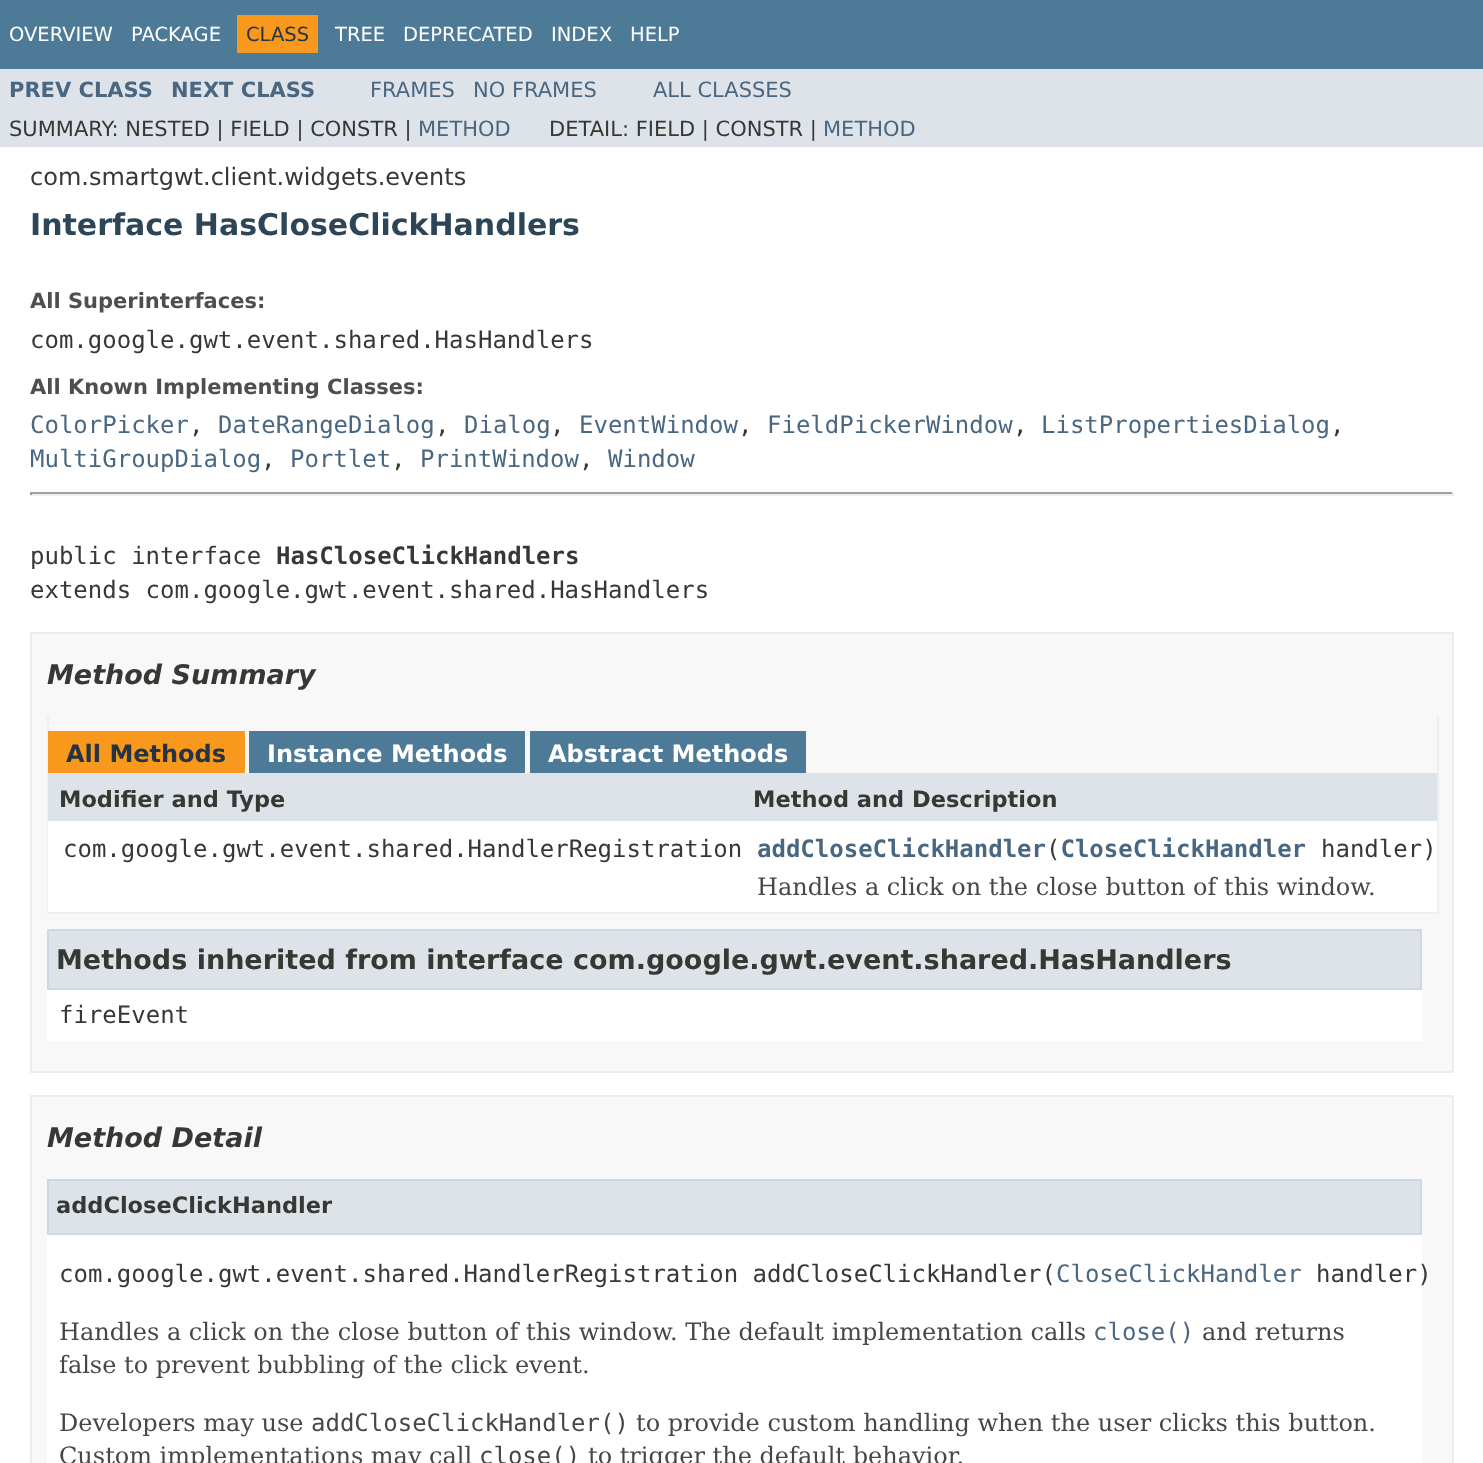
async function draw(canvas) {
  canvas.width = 1483;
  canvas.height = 1463;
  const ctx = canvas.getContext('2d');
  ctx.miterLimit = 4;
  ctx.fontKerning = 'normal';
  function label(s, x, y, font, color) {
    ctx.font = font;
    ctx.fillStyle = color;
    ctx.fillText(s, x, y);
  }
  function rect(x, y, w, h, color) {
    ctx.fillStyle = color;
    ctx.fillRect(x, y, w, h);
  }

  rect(0, 0, 1483, 1463, '#fff');
  rect(0, 0, 1483, 69, '#4d7a97');
  label('OVERVIEW', 9, 41, '19.5px DejaVu Sans', '#fff');
  label('PACKAGE', 131, 41, '19.5px DejaVu Sans', '#fff');
  rect(237, 15, 81, 38, '#f8981d');
  label('CLASS', 246, 41, '19.5px DejaVu Sans', '#253441');
  label('TREE', 335, 41, '19.5px DejaVu Sans', '#fff');
  label('DEPRECATED', 403, 41, '19.5px DejaVu Sans', '#fff');
  label('INDEX', 551, 41, '19.5px DejaVu Sans', '#fff');
  label('HELP', 630, 41, '19.5px DejaVu Sans', '#fff');
  rect(0, 69, 1483, 78, '#dee3e9');
  label('PREV CLASS', 9, 97, 'bold 21px DejaVu Sans', '#4a6782');
  label('NEXT CLASS', 171, 97, 'bold 21px DejaVu Sans', '#4a6782');
  label('FRAMES', 370, 97, '21px DejaVu Sans', '#4a6782');
  label('NO FRAMES', 473, 97, '21px DejaVu Sans', '#4a6782');
  label('ALL CLASSES', 653, 97, '21px DejaVu Sans', '#4a6782');
  label('SUMMARY: NESTED | FIELD | CONSTR |', 9, 136, '21px DejaVu Sans', '#353833');
  label('METHOD', 418, 136, '21px DejaVu Sans', '#4a6782');
  label('DETAIL: FIELD | CONSTR |', 549, 136, '21px DejaVu Sans', '#353833');
  label('METHOD', 823, 136, '21px DejaVu Sans', '#4a6782');
  label('com.smartgwt.client.widgets.events', 30, 185, '24px DejaVu Sans', '#353833');
  label('Interface HasCloseClickHandlers', 30, 235, 'bold 30px DejaVu Sans', '#2c4557');
  label('All Superinterfaces:', 30, 308, 'bold 21px DejaVu Sans', '#4e4e4e');
  label('com.google.gwt.event.shared.HasHandlers', 30, 348, '24px DejaVu Sans Mono', '#353833');
  label('All Known Implementing Classes:', 30, 394, 'bold 21px DejaVu Sans', '#4e4e4e');
  label('ColorPicker', 30, 433, '24px DejaVu Sans Mono', '#4a6782');
  label(',', 189, 433, '24px DejaVu Sans Mono', '#353833');
  label('DateRangeDialog', 218, 433, '24px DejaVu Sans Mono', '#4a6782');
  label(',', 435, 433, '24px DejaVu Sans Mono', '#353833');
  label('Dialog', 464, 433, '24px DejaVu Sans Mono', '#4a6782');
  label(',', 550, 433, '24px DejaVu Sans Mono', '#353833');
  label('EventWindow', 579, 433, '24px DejaVu Sans Mono', '#4a6782');
  label(',', 738, 433, '24px DejaVu Sans Mono', '#353833');
  label('FieldPickerWindow', 767, 433, '24px DejaVu Sans Mono', '#4a6782');
  label(',', 1013, 433, '24px DejaVu Sans Mono', '#353833');
  label('ListPropertiesDialog', 1041, 433, '24px DejaVu Sans Mono', '#4a6782');
  label(',', 1330, 433, '24px DejaVu Sans Mono', '#353833');
  label('MultiGroupDialog', 30, 467, '24px DejaVu Sans Mono', '#4a6782');
  label(',', 261, 467, '24px DejaVu Sans Mono', '#353833');
  label('Portlet', 290, 467, '24px DejaVu Sans Mono', '#4a6782');
  label(',', 391, 467, '24px DejaVu Sans Mono', '#353833');
  label('PrintWindow', 420, 467, '24px DejaVu Sans Mono', '#4a6782');
  label(',', 579, 467, '24px DejaVu Sans Mono', '#353833');
  label('Window', 608, 467, '24px DejaVu Sans Mono', '#4a6782');
  rect(30, 492, 1424, 2, '#9f9f9f');
  rect(1452, 492, 2, 3, '#eee');
  rect(30, 494, 1424, 2, '#eee');
  rect(30, 492, 2, 3, '#9f9f9f');
  label('public interface', 30, 564, '24px DejaVu Sans Mono', '#353833');
  label('HasCloseClickHandlers', 276, 564, 'bold 24px DejaVu Sans Mono', '#353833');
  label('extends com.google.gwt.event.shared.HasHandlers', 30, 598, '24px DejaVu Sans Mono', '#353833');
  ctx.fillStyle = '#f8f8f8';
  ctx.beginPath();
  ctx.rect(31, 633, 1422, 439);
  ctx.fill();
  ctx.strokeStyle = '#ededed';
  ctx.lineWidth = 2;
  ctx.stroke();
  label('Method Summary', 47, 684, 'italic bold 27px DejaVu Sans', '#353833');
  rect(1437, 716, 2, 198, '#eee');
  rect(47, 912, 1392, 2, '#eee');
  rect(47, 716, 2, 198, '#eee');
  rect(48, 731, 197, 42, '#f8981d');
  label('All Methods', 66, 762, 'bold 24px DejaVu Sans', '#253441');
  rect(249, 731, 276, 42, '#4d7a97');
  label('Instance Methods', 267, 762, 'bold 24px DejaVu Sans', '#fff');
  rect(530, 731, 276, 42, '#4d7a97');
  label('Abstract Methods', 548, 762, 'bold 24px DejaVu Sans', '#fff');
  rect(48, 773, 1389, 48, '#dee3e9');
  label('Modifier and Type', 59, 807, 'bold 22.5px DejaVu Sans', '#353833');
  label('Method and Description', 753, 807, 'bold 22.5px DejaVu Sans', '#353833');
  rect(48, 821, 1389, 91, '#fff');
  label('com.google.gwt.event.shared.HandlerRegistration', 63, 857, '24px DejaVu Sans Mono', '#353833');
  label('addCloseClickHandler CloseClickHandler', 757, 857, 'bold 24px DejaVu Sans Mono', '#4a6782');
  label('(', 1046, 857, '24px DejaVu Sans Mono', '#353833');
  label('handler)', 1321, 857, '24px DejaVu Sans Mono', '#353833');
  label('Handles a click on the close button of this window.', 757, 895, '24px DejaVu Serif', '#474747');
  rect(47, 990, 1375, 51, '#fff');
  ctx.fillStyle = '#dee3e9';
  ctx.beginPath();
  ctx.rect(48, 930, 1373, 59);
  ctx.fill();
  ctx.strokeStyle = '#d0d9e0';
  ctx.stroke();
  label('Methods inherited from interface com.google.gwt.event.shared.HasHandlers', 56, 969, 'bold 27px DejaVu Sans', '#353833');
  label('fireEvent', 59, 1023, '24px DejaVu Sans Mono', '#353833');
  ctx.fillStyle = '#f8f8f8';
  ctx.beginPath();
  ctx.rect(31, 1096, 1422, 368);
  ctx.fill();
  ctx.strokeStyle = '#ededed';
  ctx.stroke();
  label('Method Detail', 47, 1147, 'italic bold 27px DejaVu Sans', '#353833');
  rect(47, 1235, 1375, 228, '#fff');
  ctx.fillStyle = '#dee3e9';
  ctx.beginPath();
  ctx.rect(48, 1180, 1373, 54);
  ctx.fill();
  ctx.strokeStyle = '#d0d9e0';
  ctx.stroke();
  label('addCloseClickHandler', 56, 1213, 'bold 22.5px DejaVu Sans', '#353833');
  label('com.google.gwt.event.shared.HandlerRegistration addCloseClickHandler(', 59, 1282, '24px DejaVu Sans Mono', '#353833');
  label('CloseClickHandler', 1056, 1282, '24px DejaVu Sans Mono', '#4a6782');
  label('handler)', 1316, 1282, '24px DejaVu Sans Mono', '#353833');
  label('Handles a click on the close button of this window. The default implementation calls', 59, 1340, '24px DejaVu Serif', '#474747');
  label('close()', 1093, 1340, '24px DejaVu Sans Mono', '#4a6782');
  label('and returns', 1202, 1340, '24px DejaVu Serif', '#474747');
  label('false to prevent bubbling of the click event.', 59, 1373, '24px DejaVu Serif', '#474747');
  label('Developers may use', 59, 1431, '24px DejaVu Serif', '#474747');
  label('addCloseClickHandler()', 311, 1431, '24px DejaVu Sans Mono', '#474747');
  label('to provide custom handling when the user clicks this button.', 636, 1431, '24px DejaVu Serif', '#474747');
  label('Custom implementations may call', 59, 1464, '24px DejaVu Serif', '#474747');
  label('close()', 479, 1464, '24px DejaVu Sans Mono', '#474747');
  label('to trigger the default behavior.', 588, 1464, '24px DejaVu Serif', '#474747');
}

draw(document.querySelector('canvas'));
